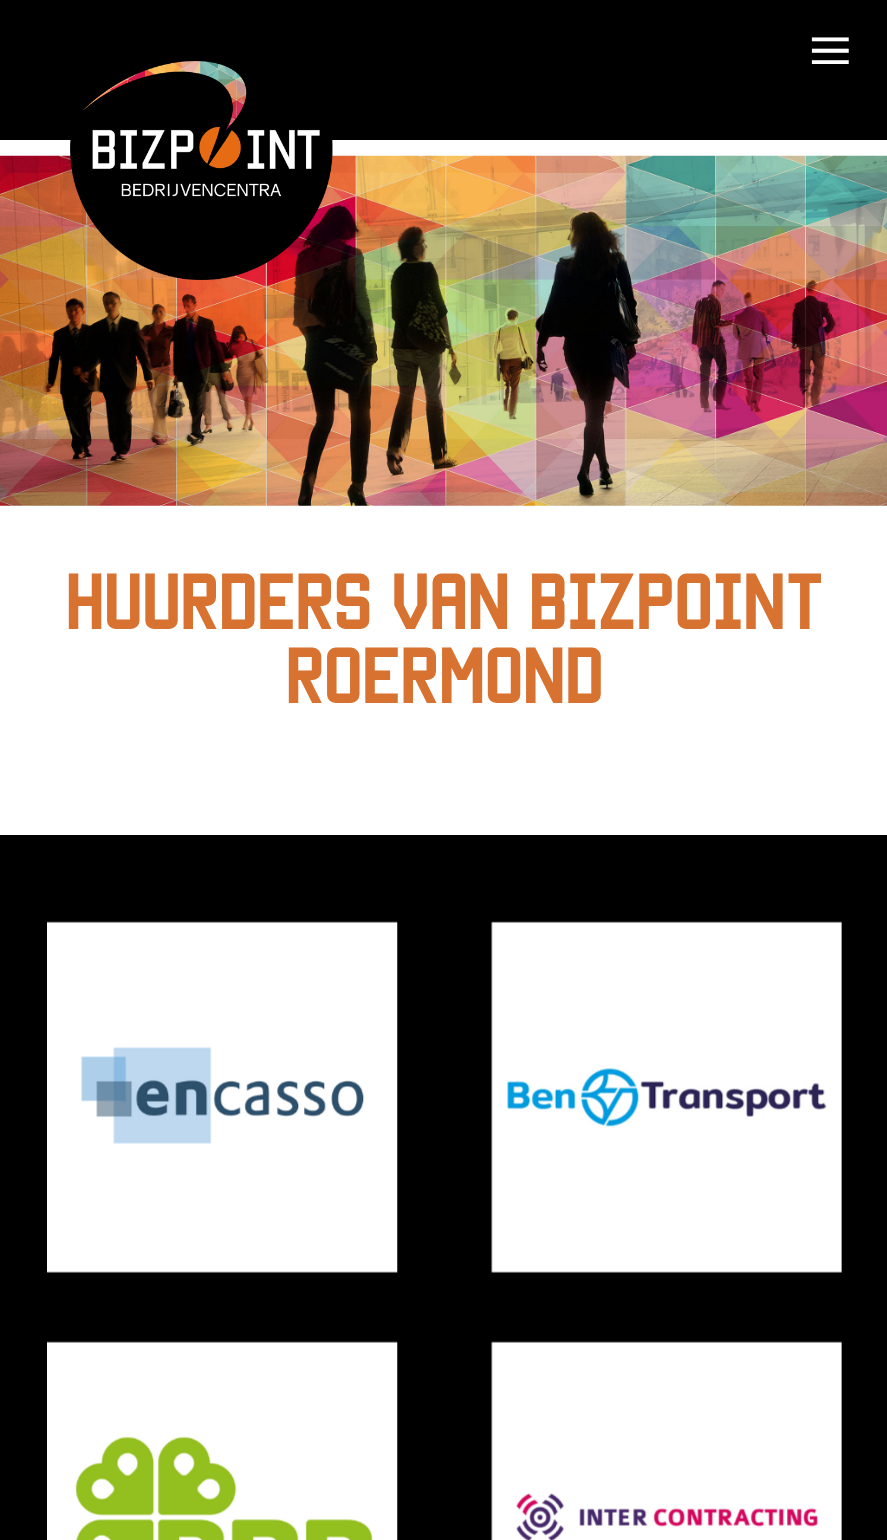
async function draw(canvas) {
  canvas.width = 887;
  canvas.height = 1540;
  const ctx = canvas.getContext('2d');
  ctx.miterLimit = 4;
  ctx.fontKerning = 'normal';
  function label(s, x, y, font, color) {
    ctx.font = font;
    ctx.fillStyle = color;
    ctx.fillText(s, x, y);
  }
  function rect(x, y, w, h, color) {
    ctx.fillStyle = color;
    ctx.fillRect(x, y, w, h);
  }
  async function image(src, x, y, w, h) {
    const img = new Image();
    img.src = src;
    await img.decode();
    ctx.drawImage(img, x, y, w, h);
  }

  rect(0, 0, 887, 1540, '#fff');
  rect(0, 0, 887, 140, '#000');
  label('≡', 808, 77, '79px Liberation Serif', '#fff');
  await image('assets/img2.png', 0, 155, 887, 351);
  await image('assets/img1.png', 70, 61, 263, 219);
  label('Huurders van Bizpoint', 65, 629, 'bold 61.25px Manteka', '#d87230');
  label('Roermond', 285, 703, 'bold 61.25px Manteka', '#d87230');
  rect(0, 835, 887, 705, '#000');
  await image('assets/img3.png', 47, 921, 351, 352);
  await image('assets/img4.png', 47, 1341, 351, 199);
  await image('assets/img5.png', 491, 921, 351, 352);
  await image('assets/img6.png', 491, 1341, 351, 199);
}

draw(document.querySelector('canvas'));
